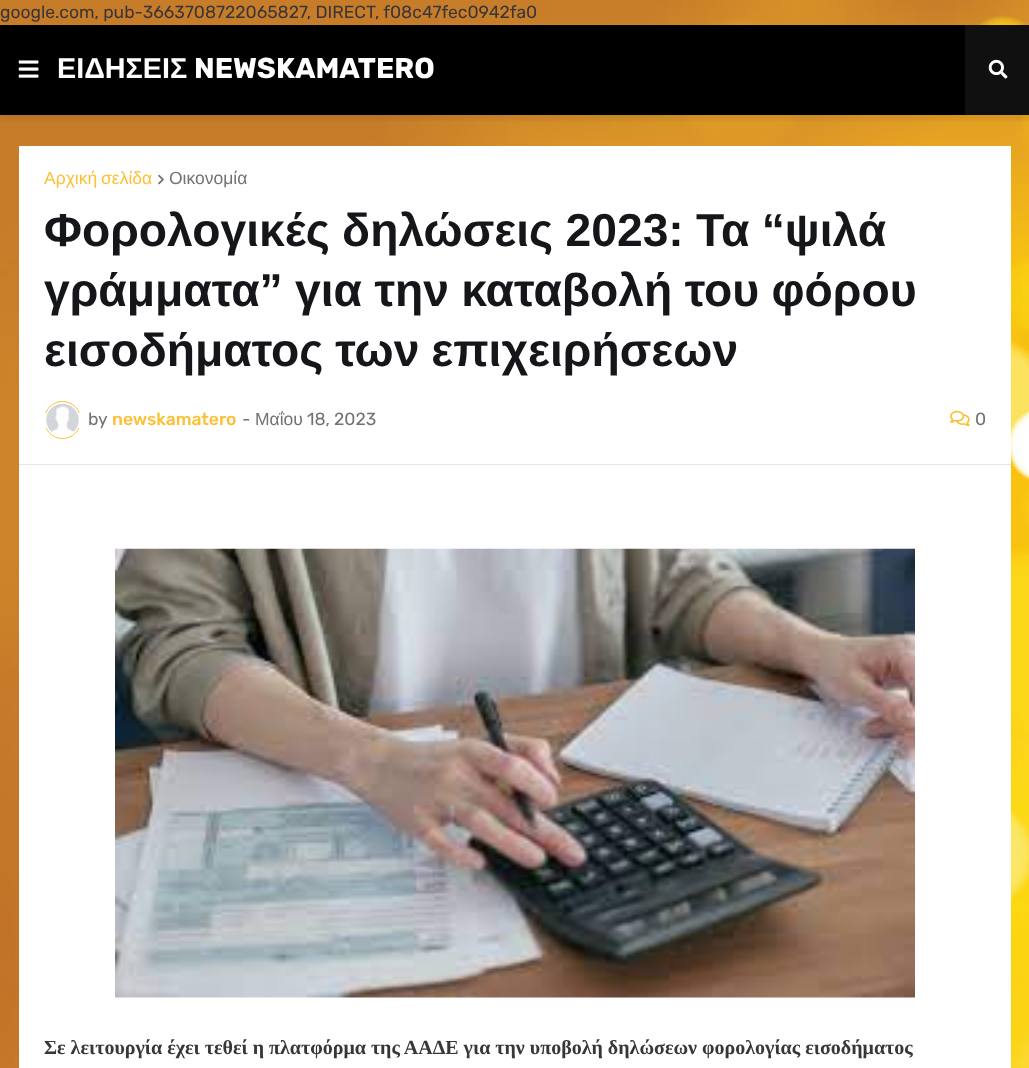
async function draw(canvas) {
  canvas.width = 1029;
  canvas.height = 1068;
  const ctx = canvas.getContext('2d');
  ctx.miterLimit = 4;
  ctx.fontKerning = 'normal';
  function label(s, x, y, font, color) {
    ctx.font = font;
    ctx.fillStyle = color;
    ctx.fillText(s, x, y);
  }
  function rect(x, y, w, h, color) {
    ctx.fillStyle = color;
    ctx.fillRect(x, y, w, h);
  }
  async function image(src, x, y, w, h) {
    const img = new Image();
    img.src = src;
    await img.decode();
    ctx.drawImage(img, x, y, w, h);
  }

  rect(0, 0, 1029, 1068, '#fff');
  await image('assets/img1.png', 0, 0, 1029, 1068);
  label('google.com, pub-3663708722065827, DIRECT, f08c47fec0942fa0', 0, 18, '17.5px Rubik', '#383638');
  rect(0, 25, 965, 90, '#000');
  ctx.save();
  ctx.beginPath();
  ctx.rect(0, 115, 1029, 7);
  ctx.clip();
  ctx.fillStyle = '#0000001a';
  ctx.filter = 'blur(4.5px)';
  ctx.beginPath();
  ctx.rect(0, 28, 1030, 90);
  ctx.fill();
  ctx.filter = 'none';
  ctx.restore();
  await image('assets/img2.png', 18, 60, 21, 18);
  label('ΕΙΔΗΣΕΙΣ', 57, 78, 'bold 28.75px Liberation Sans', '#fff');
  label('NEWSKAMATERO', 194, 78, 'bold 28.75px Rubik', '#fff');
  rect(965, 25, 64, 90, '#101010');
  await image('assets/img3.png', 988, 59, 20, 20);
  rect(19, 146, 992, 922, '#fff');
  rect(19, 464, 992, 1, '#e6e6e6');
  ctx.wordSpacing = '-1px';
  label('Αρχική σελίδα', 44, 184, '17.5px Liberation Sans', '#fcc036');
  await image('assets/img4.png', 158, 174, 6, 11);
  ctx.wordSpacing = '0px';
  label('Οικονομία', 169, 184, '17.5px Liberation Sans', '#747175');
  ctx.wordSpacing = '-0.5px';
  label('Φορολογικές δηλώσεις 2023: Τα “ψιλά', 44, 246, 'bold 46.25px Liberation Sans', '#15161a');
  label('γράμματα” για την καταβολή του φόρου', 44, 306, 'bold 46.25px Liberation Sans', '#15161a');
  ctx.wordSpacing = '-1px';
  label('εισοδήματος των επιχειρήσεων', 44, 366, 'bold 46.25px Liberation Sans', '#15161a');
  ctx.beginPath();
  ctx.roundRect(44.5, 401.5, 36, 37, 18);
  ctx.strokeStyle = '#fcc036';
  ctx.stroke();
  rect(44, 413, 37, 15, '#fff');
  await image('assets/img5.png', 46, 403, 33, 29);
  ctx.wordSpacing = '0px';
  label('by', 88, 425, '17.5px Rubik', '#747175');
  label('newskamatero', 112, 425, '500 17.5px Rubik', '#fcc036');
  label('-', 242, 425, '17.5px Rubik', '#747175');
  label('Μαΐου', 255, 425, '17.5px Liberation Sans', '#747175');
  label('18, 2023', 307, 425, '17.5px Rubik', '#747175');
  await image('assets/img6.png', 950, 410, 20, 17);
  label('0', 975, 425, '17.5px Rubik', '#747175');
  await image('assets/img7.png', 115, 548, 800, 450);
  label('Σε λειτουργία έχει τεθεί η πλατφόρμα της ΑΑΔΕ για την υποβολή δηλώσεων φορολογίας εισοδήματος', 44, 1054, 'bold 20px Liberation Serif', '#383638');
}

draw(document.querySelector('canvas'));
